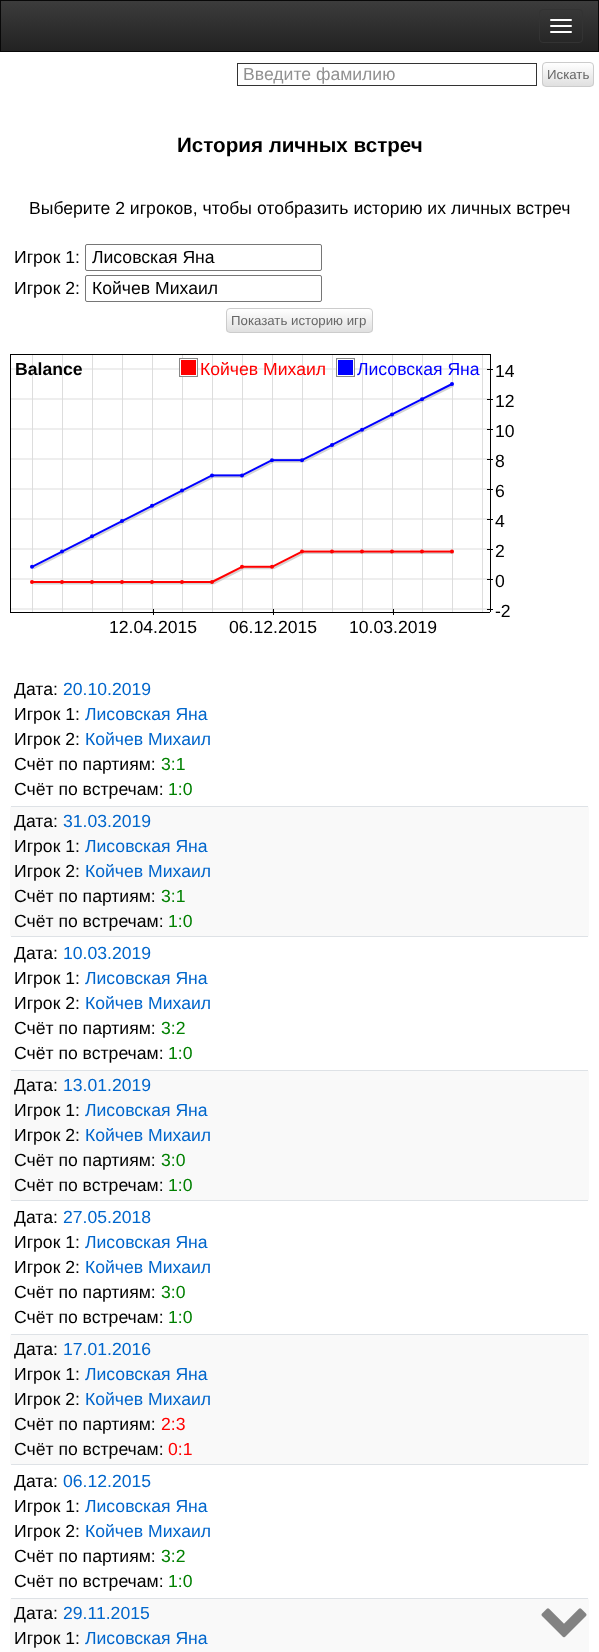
async function draw(canvas) {
  canvas.width = 599;
  canvas.height = 1652;
  const ctx = canvas.getContext('2d');
  ctx.miterLimit = 4;
  ctx.fontKerning = 'normal';
  function label(s, x, y, font, color) {
    ctx.font = font;
    ctx.fillStyle = color;
    ctx.fillText(s, x, y);
  }
  function rect(x, y, w, h, color) {
    ctx.fillStyle = color;
    ctx.fillRect(x, y, w, h);
  }
  function roundedRect(x, y, w, h, r, color) {
    ctx.fillStyle = color;
    ctx.beginPath();
    ctx.roundRect(x, y, w, h, r);
    ctx.fill();
  }
  async function image(src, x, y, w, h) {
    const img = new Image();
    img.src = src;
    await img.decode();
    ctx.drawImage(img, x, y, w, h);
  }
  let gradient;

  rect(0, 0, 599, 1652, '#fff');
  gradient = ctx.createLinearGradient(300, 1, 300, 51);
  gradient.addColorStop(0, '#3c3c3c');
  gradient.addColorStop(1, '#222');
  ctx.fillStyle = gradient;
  ctx.fillRect(1, 1, 597, 50);
  ctx.strokeStyle = '#080808';
  ctx.strokeRect(0.5, 0.5, 598, 51);
  ctx.beginPath();
  ctx.roundRect(539.5, 9.5, 43, 33, 3.5);
  ctx.strokeStyle = '#333';
  ctx.stroke();
  roundedRect(550, 19, 22, 2, 1, '#fff');
  roundedRect(550, 25, 22, 2, 1, '#fff');
  roundedRect(550, 31, 22, 2, 1, '#fff');
  ctx.strokeRect(237.5, 63.5, 299, 22);
  label('Введите фамилию', 243, 80, '17.6px Liberation Sans', '#919191');
  ctx.save();
  ctx.beginPath();
  ctx.roundRect(542, 62, 52, 25, 4);
  ctx.clip();
  gradient = ctx.createLinearGradient(543, 63, 543, 86);
  gradient.addColorStop(0, '#fff');
  gradient.addColorStop(1, '#e0e0e0');
  ctx.fillStyle = gradient;
  ctx.fillRect(542, 63, 52, 23);
  ctx.restore();
  ctx.beginPath();
  ctx.roundRect(542.5, 62.5, 51, 24, 3.5);
  ctx.strokeStyle = '#ccc';
  ctx.stroke();
  label('Искать', 547, 79, '13.25px Liberation Sans', '#666');
  label('История личных встреч', 177, 152, 'bold 20.6px Liberation Sans', '#000');
  label('Выберите 2 игроков, чтобы отобразить историю их личных встреч', 29, 214, '17.6px Liberation Sans', '#000');
  label('Игрок 1:', 14, 263, '17.6px Liberation Sans', '#000');
  ctx.beginPath();
  ctx.roundRect(85.5, 244.5, 236, 26, 1.5);
  ctx.strokeStyle = '#767676';
  ctx.stroke();
  label('Лисовская Яна', 92, 263, '17.6px Liberation Sans', '#000');
  label('Игрок 2:', 14, 294, '17.6px Liberation Sans', '#000');
  ctx.beginPath();
  ctx.roundRect(85.5, 275.5, 236, 26, 1.5);
  ctx.stroke();
  label('Койчев Михаил', 92, 294, '17.6px Liberation Sans', '#000');
  ctx.save();
  ctx.beginPath();
  ctx.roundRect(226, 308, 147, 25, 4);
  ctx.clip();
  gradient = ctx.createLinearGradient(227, 309, 227, 332);
  gradient.addColorStop(0, '#fff');
  gradient.addColorStop(1, '#e0e0e0');
  ctx.fillStyle = gradient;
  ctx.fillRect(226, 309, 147, 23);
  ctx.restore();
  ctx.beginPath();
  ctx.roundRect(226.5, 308.5, 146, 24, 3.5);
  ctx.strokeStyle = '#ccc';
  ctx.stroke();
  label('Показать историю игр', 231, 325, '13.25px Liberation Sans', '#666');
  rect(10, 354, 480, 1, '#000');
  rect(10, 354, 1, 258, '#000');
  await image('assets/img1.png', 11, 355, 479, 257);
  rect(487, 369, 6, 1, '#000');
  rect(487, 399, 6, 1, '#000');
  rect(487, 429, 6, 1, '#000');
  rect(487, 459, 6, 1, '#000');
  rect(487, 489, 6, 1, '#000');
  rect(487, 519, 6, 1, '#000');
  rect(487, 549, 6, 1, '#000');
  rect(487, 579, 6, 1, '#000');
  rect(487, 609, 6, 1, '#000');
  rect(490, 354, 1, 258, '#000');
  label('Balance', 15, 375, 'bold 17.6px Liberation Sans', '#000');
  ctx.fillStyle = '#f00';
  ctx.beginPath();
  ctx.rect(180.5, 359.5, 16, 16);
  ctx.fill();
  ctx.strokeStyle = '#fff';
  ctx.stroke();
  ctx.strokeStyle = '#888';
  ctx.strokeRect(179.5, 358.5, 18, 18);
  label('Койчев Михаил', 200, 375, '17.6px Liberation Sans', '#f00');
  ctx.fillStyle = '#00f';
  ctx.beginPath();
  ctx.rect(337.5, 359.5, 16, 16);
  ctx.fill();
  ctx.strokeStyle = '#fff';
  ctx.stroke();
  ctx.strokeStyle = '#888';
  ctx.strokeRect(336.5, 358.5, 18, 18);
  label('Лисовская Яна', 357, 375, '17.6px Liberation Sans', '#00f');
  label('14', 495, 377, '17.6px Liberation Sans', '#000');
  label('12', 495, 407, '17.6px Liberation Sans', '#000');
  label('10', 495, 437, '17.6px Liberation Sans', '#000');
  label('8', 495, 467, '17.6px Liberation Sans', '#000');
  label('6', 495, 497, '17.6px Liberation Sans', '#000');
  label('4', 495, 527, '17.6px Liberation Sans', '#000');
  label('2', 495, 557, '17.6px Liberation Sans', '#000');
  label('0', 495, 587, '17.6px Liberation Sans', '#000');
  rect(153, 609, 1, 6, '#000');
  rect(273, 609, 1, 6, '#000');
  rect(393, 609, 1, 6, '#000');
  label('-2', 495, 617, '17.6px Liberation Sans', '#000');
  rect(10, 612, 480, 1, '#000');
  label('12.04.2015', 109, 633, '17.6px Liberation Sans', '#000');
  label('06.12.2015', 229, 633, '17.6px Liberation Sans', '#000');
  label('10.03.2019', 349, 633, '17.6px Liberation Sans', '#000');
  label('Дата:', 14, 695, '17.6px Liberation Sans', '#000');
  label('20.10.2019', 63, 695, '17.6px Liberation Sans', '#06c');
  label('Игрок 1:', 14, 720, '17.6px Liberation Sans', '#000');
  label('Лисовская Яна', 85, 720, '17.6px Liberation Sans', '#06c');
  label('Игрок 2:', 14, 745, '17.6px Liberation Sans', '#000');
  label('Койчев Михаил', 85, 745, '17.6px Liberation Sans', '#06c');
  label('Счёт по партиям:', 14, 770, '17.6px Liberation Sans', '#000');
  label('3:1', 161, 770, '17.6px Liberation Sans', '#008000');
  label('Счёт по встречам:', 14, 795, '17.6px Liberation Sans', '#000');
  label('1:0', 168, 795, '17.6px Liberation Sans', '#008000');
  roundedRect(10, 806, 579, 131, 2, '#f9f9f9');
  rect(11, 806, 577, 1, '#dee2e6');
  rect(11, 936, 577, 1, '#dee2e6');
  label('Дата:', 14, 827, '17.6px Liberation Sans', '#000');
  label('31.03.2019', 63, 827, '17.6px Liberation Sans', '#06c');
  label('Игрок 1:', 14, 852, '17.6px Liberation Sans', '#000');
  label('Лисовская Яна', 85, 852, '17.6px Liberation Sans', '#06c');
  label('Игрок 2:', 14, 877, '17.6px Liberation Sans', '#000');
  label('Койчев Михаил', 85, 877, '17.6px Liberation Sans', '#06c');
  label('Счёт по партиям:', 14, 902, '17.6px Liberation Sans', '#000');
  label('3:1', 161, 902, '17.6px Liberation Sans', '#008000');
  label('Счёт по встречам:', 14, 927, '17.6px Liberation Sans', '#000');
  label('1:0', 168, 927, '17.6px Liberation Sans', '#008000');
  label('Дата:', 14, 959, '17.6px Liberation Sans', '#000');
  label('10.03.2019', 63, 959, '17.6px Liberation Sans', '#06c');
  label('Игрок 1:', 14, 984, '17.6px Liberation Sans', '#000');
  label('Лисовская Яна', 85, 984, '17.6px Liberation Sans', '#06c');
  label('Игрок 2:', 14, 1009, '17.6px Liberation Sans', '#000');
  label('Койчев Михаил', 85, 1009, '17.6px Liberation Sans', '#06c');
  label('Счёт по партиям:', 14, 1034, '17.6px Liberation Sans', '#000');
  label('3:2', 161, 1034, '17.6px Liberation Sans', '#008000');
  label('Счёт по встречам:', 14, 1059, '17.6px Liberation Sans', '#000');
  label('1:0', 168, 1059, '17.6px Liberation Sans', '#008000');
  roundedRect(10, 1070, 579, 131, 2, '#f9f9f9');
  rect(11, 1070, 577, 1, '#dee2e6');
  rect(11, 1200, 577, 1, '#dee2e6');
  label('Дата:', 14, 1091, '17.6px Liberation Sans', '#000');
  label('13.01.2019', 63, 1091, '17.6px Liberation Sans', '#06c');
  label('Игрок 1:', 14, 1116, '17.6px Liberation Sans', '#000');
  label('Лисовская Яна', 85, 1116, '17.6px Liberation Sans', '#06c');
  label('Игрок 2:', 14, 1141, '17.6px Liberation Sans', '#000');
  label('Койчев Михаил', 85, 1141, '17.6px Liberation Sans', '#06c');
  label('Счёт по партиям:', 14, 1166, '17.6px Liberation Sans', '#000');
  label('3:0', 161, 1166, '17.6px Liberation Sans', '#008000');
  label('Счёт по встречам:', 14, 1191, '17.6px Liberation Sans', '#000');
  label('1:0', 168, 1191, '17.6px Liberation Sans', '#008000');
  label('Дата:', 14, 1223, '17.6px Liberation Sans', '#000');
  label('27.05.2018', 63, 1223, '17.6px Liberation Sans', '#06c');
  label('Игрок 1:', 14, 1248, '17.6px Liberation Sans', '#000');
  label('Лисовская Яна', 85, 1248, '17.6px Liberation Sans', '#06c');
  label('Игрок 2:', 14, 1273, '17.6px Liberation Sans', '#000');
  label('Койчев Михаил', 85, 1273, '17.6px Liberation Sans', '#06c');
  label('Счёт по партиям:', 14, 1298, '17.6px Liberation Sans', '#000');
  label('3:0', 161, 1298, '17.6px Liberation Sans', '#008000');
  label('Счёт по встречам:', 14, 1323, '17.6px Liberation Sans', '#000');
  label('1:0', 168, 1323, '17.6px Liberation Sans', '#008000');
  roundedRect(10, 1334, 579, 131, 2, '#f9f9f9');
  rect(11, 1334, 577, 1, '#dee2e6');
  rect(11, 1464, 577, 1, '#dee2e6');
  label('Дата:', 14, 1355, '17.6px Liberation Sans', '#000');
  label('17.01.2016', 63, 1355, '17.6px Liberation Sans', '#06c');
  label('Игрок 1:', 14, 1380, '17.6px Liberation Sans', '#000');
  label('Лисовская Яна', 85, 1380, '17.6px Liberation Sans', '#06c');
  label('Игрок 2:', 14, 1405, '17.6px Liberation Sans', '#000');
  label('Койчев Михаил', 85, 1405, '17.6px Liberation Sans', '#06c');
  label('Счёт по партиям:', 14, 1430, '17.6px Liberation Sans', '#000');
  label('2:3', 161, 1430, '17.6px Liberation Sans', '#f00');
  label('Счёт по встречам:', 14, 1455, '17.6px Liberation Sans', '#000');
  label('0:1', 168, 1455, '17.6px Liberation Sans', '#f00');
  label('Дата:', 14, 1487, '17.6px Liberation Sans', '#000');
  label('06.12.2015', 63, 1487, '17.6px Liberation Sans', '#06c');
  label('Игрок 1:', 14, 1512, '17.6px Liberation Sans', '#000');
  label('Лисовская Яна', 85, 1512, '17.6px Liberation Sans', '#06c');
  label('Игрок 2:', 14, 1537, '17.6px Liberation Sans', '#000');
  label('Койчев Михаил', 85, 1537, '17.6px Liberation Sans', '#06c');
  label('Счёт по партиям:', 14, 1562, '17.6px Liberation Sans', '#000');
  label('3:2', 161, 1562, '17.6px Liberation Sans', '#008000');
  label('Счёт по встречам:', 14, 1587, '17.6px Liberation Sans', '#000');
  label('1:0', 168, 1587, '17.6px Liberation Sans', '#008000');
  roundedRect(10, 1598, 579, 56, 2, '#f9f9f9');
  rect(11, 1598, 577, 1, '#dee2e6');
  label('Дата:', 14, 1619, '17.6px Liberation Sans', '#000');
  label('29.11.2015', 63, 1619, '17.6px Liberation Sans', '#06c');
  label('Игрок 1:', 14, 1644, '17.6px Liberation Sans', '#000');
  label('Лисовская Яна', 85, 1644, '17.6px Liberation Sans', '#06c');
  await image('assets/img2.png', 541, 1608, 46, 30);
}

draw(document.querySelector('canvas'));
